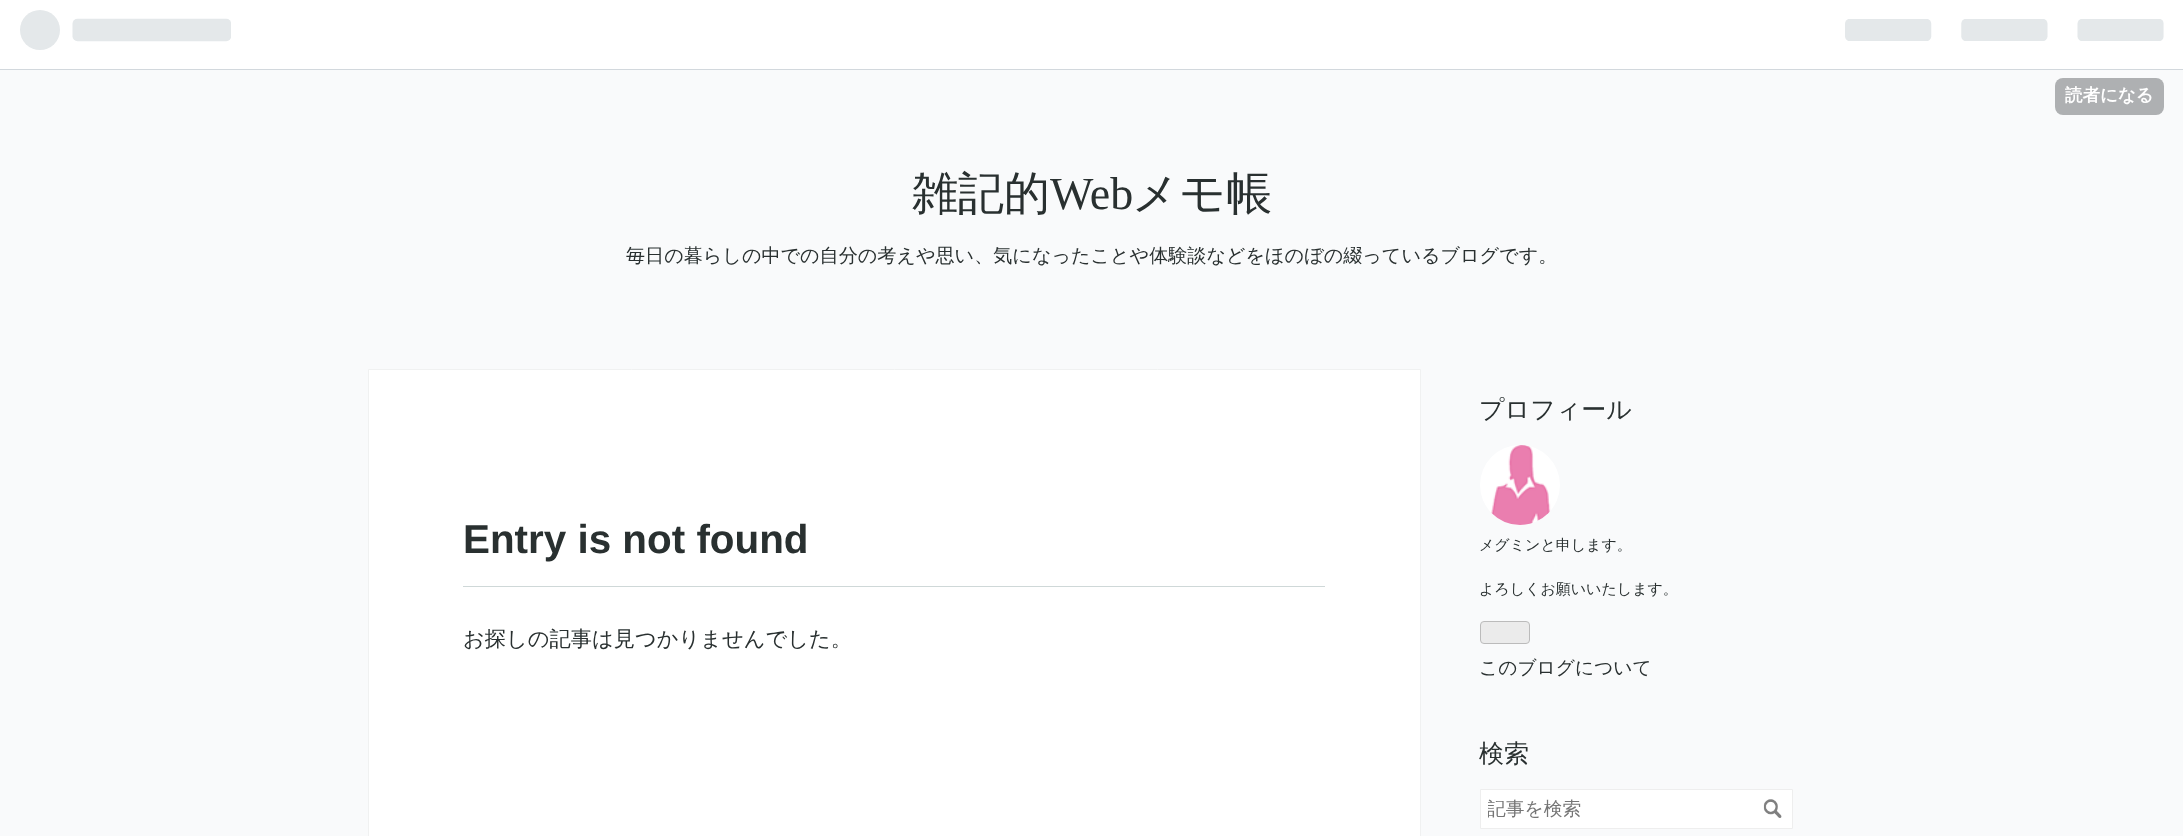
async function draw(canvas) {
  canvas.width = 2183;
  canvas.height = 836;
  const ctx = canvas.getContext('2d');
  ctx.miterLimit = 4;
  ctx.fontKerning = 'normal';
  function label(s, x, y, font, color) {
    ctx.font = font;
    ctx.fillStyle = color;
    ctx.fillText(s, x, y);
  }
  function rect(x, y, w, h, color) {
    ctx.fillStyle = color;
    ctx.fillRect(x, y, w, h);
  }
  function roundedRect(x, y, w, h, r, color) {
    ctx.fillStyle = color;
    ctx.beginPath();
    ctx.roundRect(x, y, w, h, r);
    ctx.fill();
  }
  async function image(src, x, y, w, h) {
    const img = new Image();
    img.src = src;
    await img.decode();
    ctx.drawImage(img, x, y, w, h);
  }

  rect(0, 0, 2183, 836, '#f9fafb');
  rect(0, 0, 2183, 69, '#fff');
  rect(0, 69, 2183, 1, '#d2d8dd');
  await image('assets/img1.png', 20, 10, 211, 40);
  await image('assets/img2.png', 1845, 19, 319, 22);
  roundedRect(2055, 78, 109, 37, 8, '#aeb0b2');
  label('読者になる', 2065, 101, 'bold 17.5px WenQuanYi Zen Hei', '#fff');
  label('雑記的', 912, 209, '500 46px WenQuanYi Zen Hei', '#293030');
  label('Web', 1050, 209, '46px Liberation Serif', '#293030');
  label('メモ帳', 1132, 209, '500 46px WenQuanYi Zen Hei', '#293030');
  label('毎日の暮らしの中での自分の考えや思い、気になったことや体験談などをほのぼの綴っているブログです。', 626, 262, '500 19.1px WenQuanYi Zen Hei', '#293030');
  ctx.fillStyle = '#fff';
  ctx.beginPath();
  ctx.rect(368.5, 369.5, 1052, 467);
  ctx.fill();
  ctx.strokeStyle = '#f0f1f1';
  ctx.stroke();
  rect(463, 586, 862, 1, '#cfd8d8');
  label('Entry is not found', 463, 553, 'bold 40.4px Liberation Sans', '#293030');
  label('お探しの記事は見つかりませんでした。', 463, 646, '500 21.25px WenQuanYi Zen Hei', '#293030');
  label('プロフィール', 1479, 418, '500 25px WenQuanYi Zen Hei', '#293030');
  await image('assets/img3.png', 1480, 445, 80, 80);
  label('メグミンと申します。', 1479, 550, '500 15px WenQuanYi Zen Hei', '#293030');
  label('よろしくお願いいたします。', 1479, 594, '500 15px WenQuanYi Zen Hei', '#293030');
  ctx.fillStyle = '#ebebeb';
  ctx.beginPath();
  ctx.roundRect(1480.5, 621.5, 49, 22, 3.5);
  ctx.fill();
  ctx.strokeStyle = '#bbb';
  ctx.stroke();
  label('このブログについて', 1479, 674, '500 18.75px WenQuanYi Zen Hei', '#293030');
  label('検索', 1479, 762, '500 25px WenQuanYi Zen Hei', '#293030');
  ctx.fillStyle = '#fff';
  ctx.beginPath();
  ctx.rect(1480.5, 789.5, 312, 39);
  ctx.fill();
  ctx.strokeStyle = '#eee';
  ctx.stroke();
  ctx.save();
  ctx.beginPath();
  ctx.rect(1488, 798, 266, 23);
  ctx.clip();
  label('記事を検索', 1487, 815, '500 18.75px WenQuanYi Zen Hei', '#757575');
  ctx.restore();
  await image('assets/img4.png', 1763, 799, 19, 19);
}

draw(document.querySelector('canvas'));
